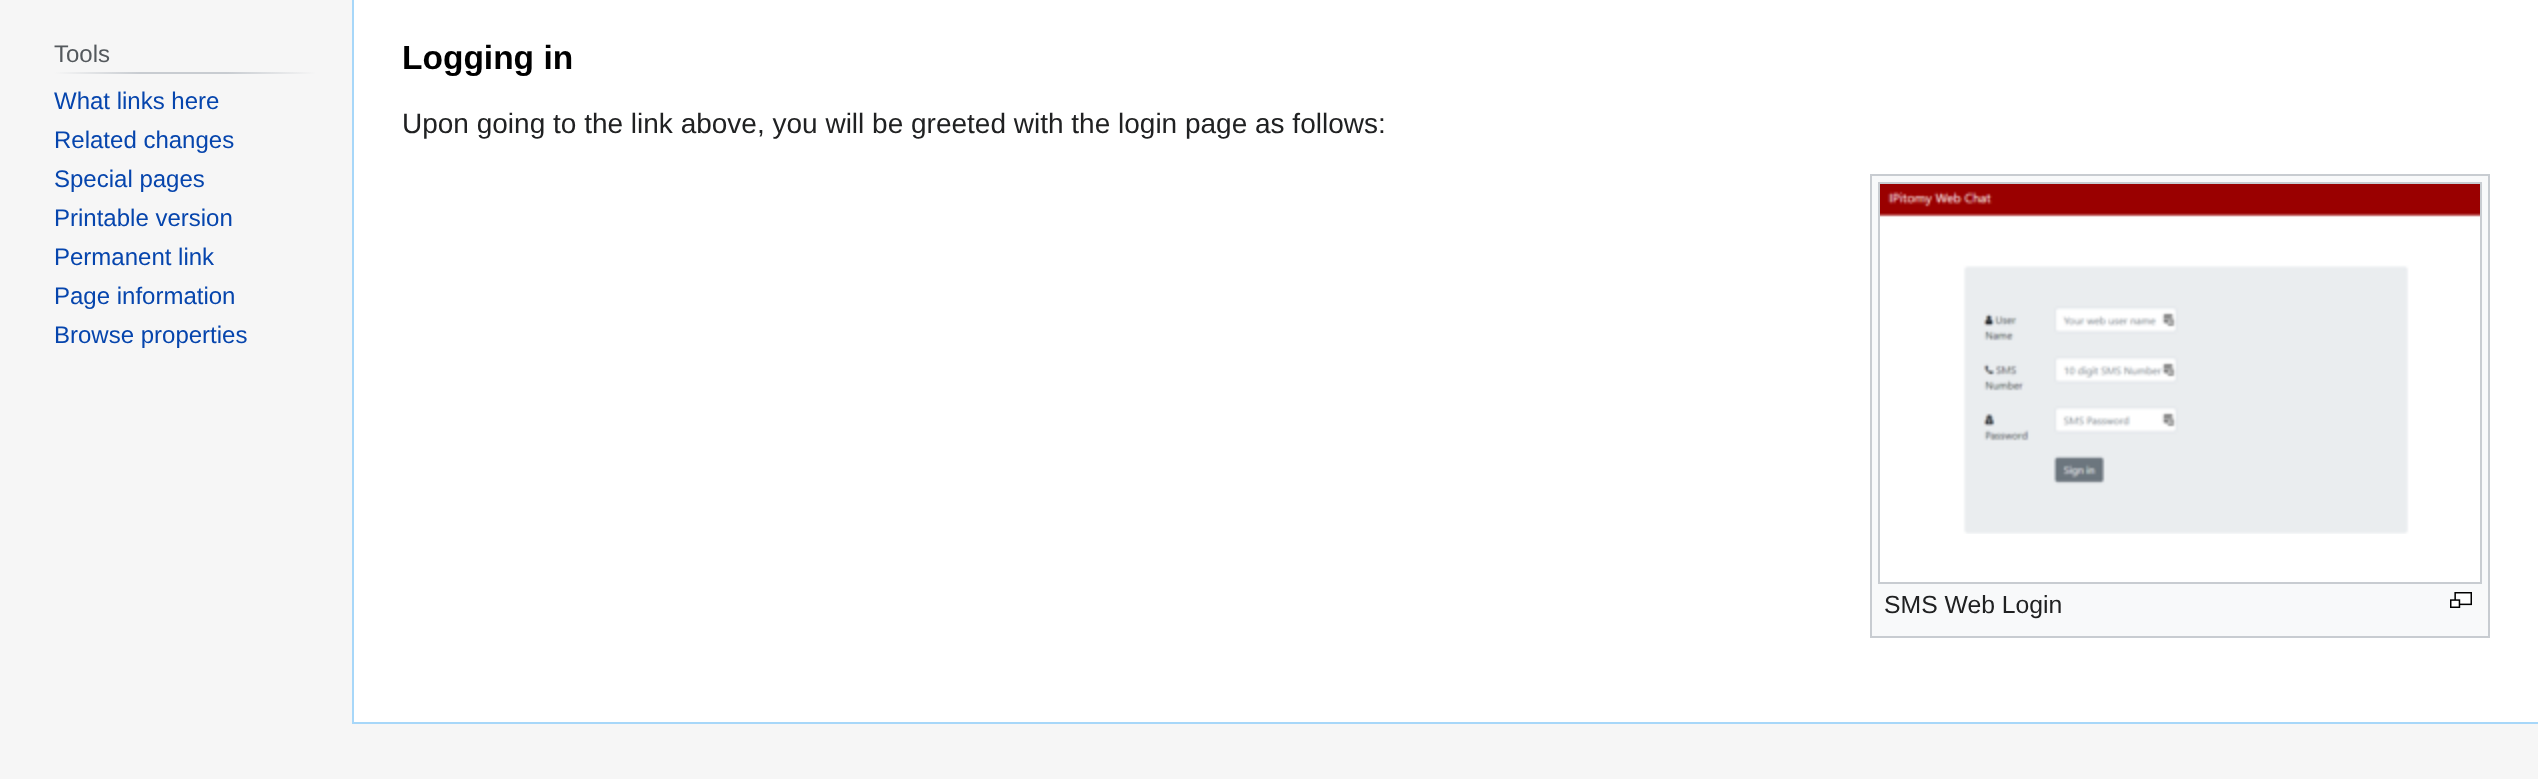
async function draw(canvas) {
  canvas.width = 2538;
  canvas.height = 779;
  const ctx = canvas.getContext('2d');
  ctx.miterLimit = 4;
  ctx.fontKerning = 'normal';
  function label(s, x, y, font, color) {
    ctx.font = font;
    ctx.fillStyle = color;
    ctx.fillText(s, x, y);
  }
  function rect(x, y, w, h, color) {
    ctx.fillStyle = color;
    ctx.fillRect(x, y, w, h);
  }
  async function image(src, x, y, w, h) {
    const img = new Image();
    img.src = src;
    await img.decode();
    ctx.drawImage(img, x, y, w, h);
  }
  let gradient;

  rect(0, 0, 2538, 779, '#f6f6f6');
  gradient = ctx.createLinearGradient(54, 73, 316, 73);
  gradient.addColorStop(0, '#f6f6f6');
  gradient.addColorStop(0.33, '#c8ccd1');
  gradient.addColorStop(0.66, '#c8ccd1');
  gradient.addColorStop(1, '#f6f6f6');
  ctx.fillStyle = gradient;
  ctx.fillRect(54, 72, 262, 2);
  label('Tools', 54, 62, '24px Liberation Sans', '#54595d');
  label('What links here', 54, 109, '24px Liberation Sans', '#0645ad');
  label('Related changes', 54, 148, '24px Liberation Sans', '#0645ad');
  label('Special pages', 54, 187, '24px Liberation Sans', '#0645ad');
  label('Printable version', 54, 226, '24px Liberation Sans', '#0645ad');
  label('Permanent link', 54, 265, '24px Liberation Sans', '#0645ad');
  label('Page information', 54, 304, '24px Liberation Sans', '#0645ad');
  label('Browse properties', 54, 343, '24px Liberation Sans', '#0645ad');
  rect(354, 0, 2184, 722, '#fff');
  rect(352, 722, 2186, 2, '#a7d7f9');
  rect(352, 0, 2, 724, '#a7d7f9');
  label('Logging in', 402, 69, 'bold 33.5px Liberation Sans', '#000');
  label('Upon going to the link above, you will be greeted with the login page as follows:', 402, 133, '28px Liberation Sans', '#202122');
  ctx.fillStyle = '#f8f9fa';
  ctx.beginPath();
  ctx.rect(1871, 175, 618, 462);
  ctx.fill();
  ctx.strokeStyle = '#c8ccd1';
  ctx.lineWidth = 2;
  ctx.stroke();
  rect(1880, 534, 600, 48, '#fff');
  ctx.strokeRect(1879, 183, 602, 400);
  await image('assets/img1.png', 1880, 184, 600, 350);
  label('SMS Web Login', 1884, 613, '24.75px Liberation Sans', '#202122');
  await image('assets/img2.png', 2450, 592, 22, 16);
}

draw(document.querySelector('canvas'));
